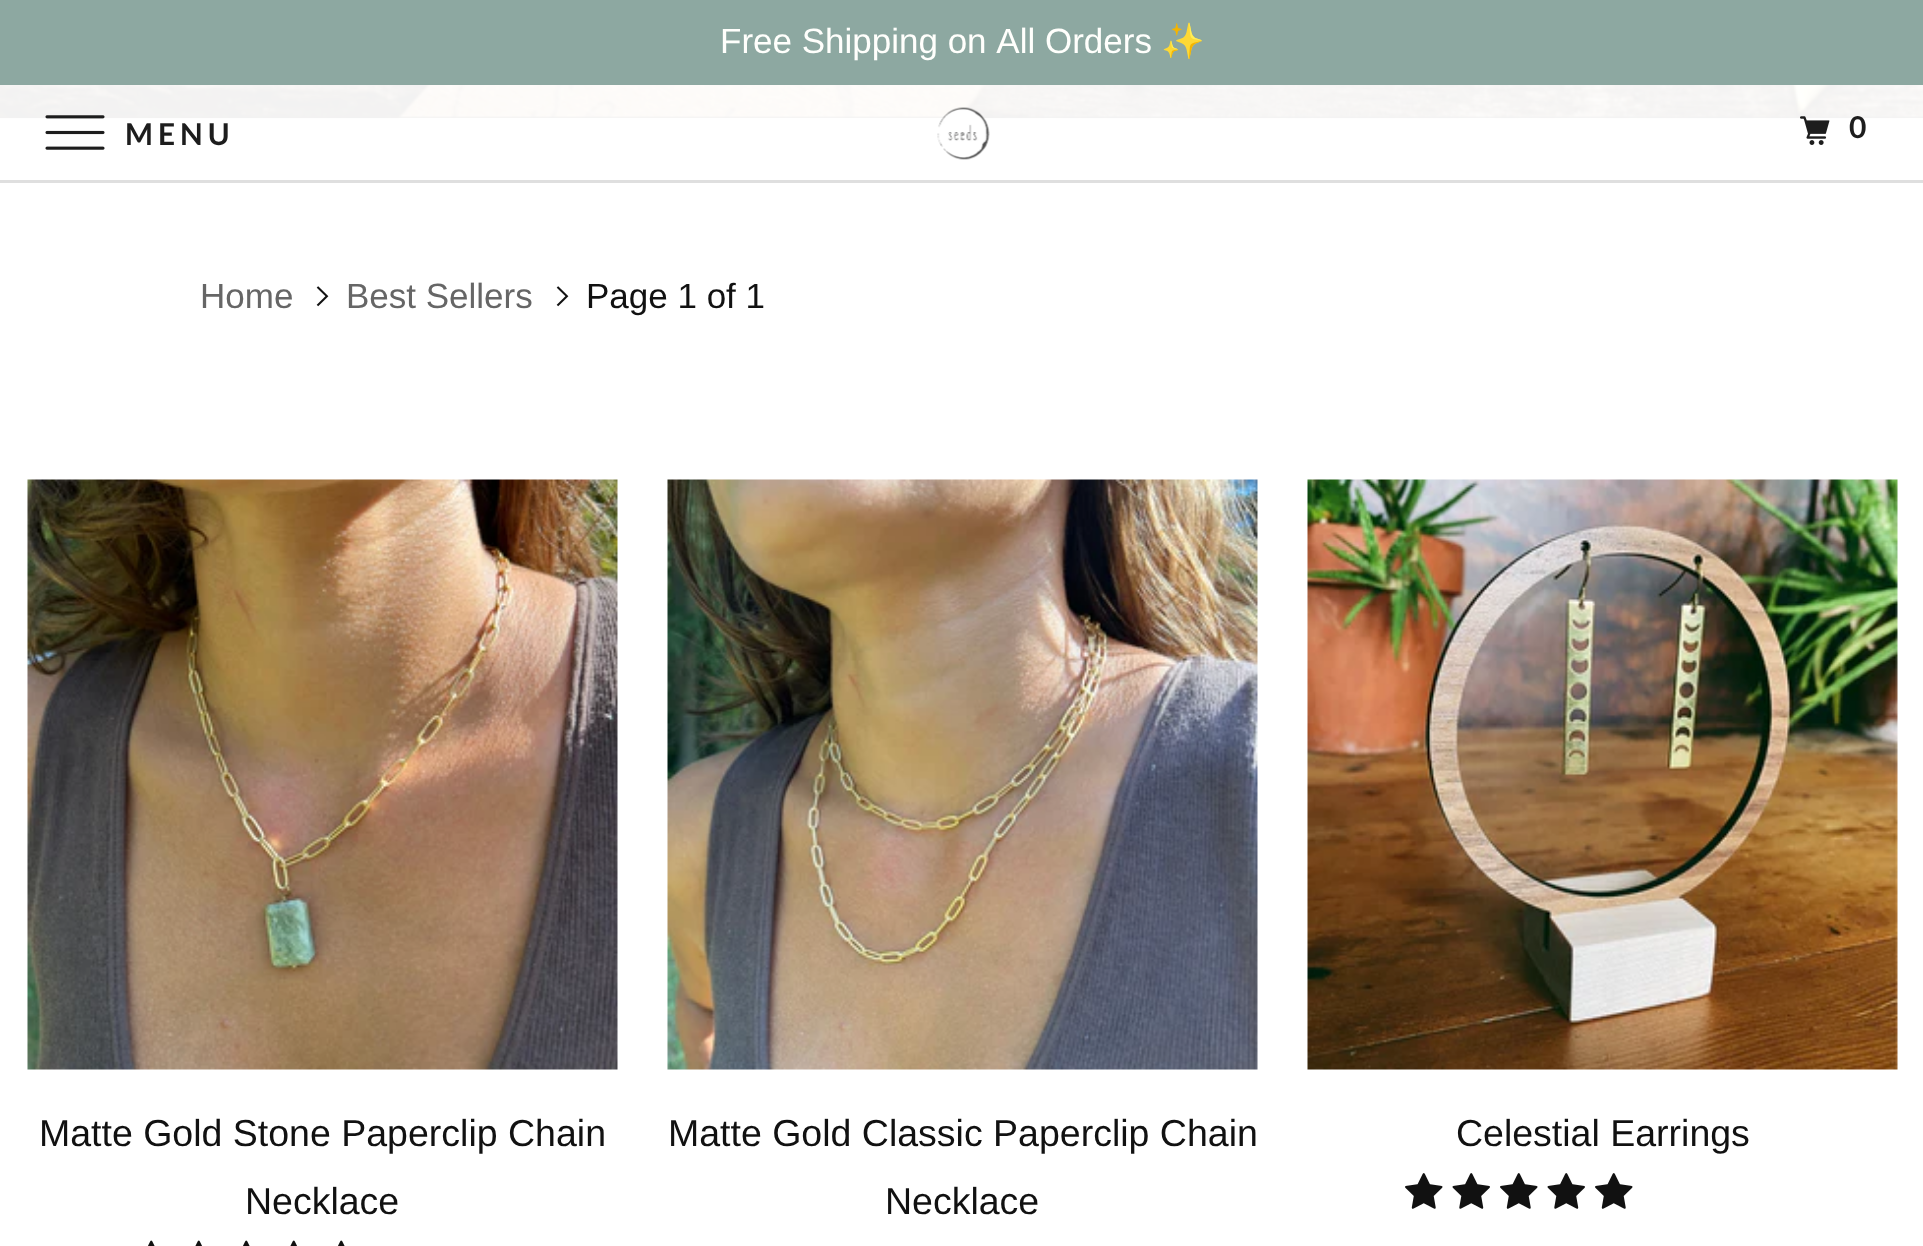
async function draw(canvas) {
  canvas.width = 1923;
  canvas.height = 1246;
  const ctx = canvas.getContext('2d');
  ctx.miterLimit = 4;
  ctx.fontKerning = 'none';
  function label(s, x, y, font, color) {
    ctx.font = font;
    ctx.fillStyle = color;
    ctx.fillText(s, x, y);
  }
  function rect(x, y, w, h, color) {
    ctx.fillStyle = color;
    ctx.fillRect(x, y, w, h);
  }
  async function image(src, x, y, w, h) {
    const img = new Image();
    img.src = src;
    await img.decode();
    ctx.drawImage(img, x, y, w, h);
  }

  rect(0, 0, 1923, 1246, '#fff');
  rect(0, 0, 1923, 85, '#8da8a1');
  label('Free Shipping on All Orders', 720, 53, '35px Liberation Sans', '#fffffc');
  label('✨', 1161, 53, '35px Noto Color Emoji', '#fffffc');
  rect(0, 116, 1923, 2, '#111');
  await image('assets/img1.png', 0, 85, 1923, 34);
  label('Home', 200, 308, '35px Liberation Sans', '#666');
  await image('assets/img2.png', 316, 286, 13, 21);
  label('Best Sellers', 346, 308, '35px Liberation Sans', '#666');
  await image('assets/img2.png', 556, 286, 13, 21);
  label('Page 1 of 1', 586, 308, '35px Liberation Sans', '#111');
  await image('assets/img3.png', 27, 479, 591, 591);
  label('Matte Gold Stone Paperclip Chain', 39, 1146, '37.5px Liberation Sans', '#111');
  label('Necklace', 245, 1214, '37.5px Liberation Sans', '#111');
  await image('assets/img4.png', 148, 1240, 7, 6);
  await image('assets/img5.png', 195, 1240, 7, 6);
  await image('assets/img4.png', 243, 1240, 7, 6);
  await image('assets/img5.png', 290, 1240, 7, 6);
  await image('assets/img4.png', 338, 1240, 7, 6);
  await image('assets/img6.png', 667, 479, 591, 591);
  label('Matte Gold Classic Paperclip Chain', 668, 1146, '37.5px Liberation Sans', '#111');
  label('Necklace', 885, 1214, '37.5px Liberation Sans', '#111');
  await image('assets/img7.png', 1307, 479, 591, 591);
  label('Celestial Earrings', 1456, 1146, '37.5px Liberation Sans', '#111');
  await image('assets/img8.png', 1405, 1173, 38, 36);
  await image('assets/img9.png', 1452, 1173, 38, 36);
  await image('assets/img8.png', 1500, 1173, 38, 36);
  await image('assets/img9.png', 1547, 1173, 38, 36);
  await image('assets/img8.png', 1595, 1173, 38, 36);
  rect(0, 85, 1923, 34, '#fffffff2');
  rect(0, 180, 1923, 3, '#dfdfdf');
  await image('assets/img10.png', 45, 115, 60, 35);
  ctx.letterSpacing = '5px';
  label('MENU', 125, 145, 'bold 30px Lato', '#1d1d1d');
  await image('assets/img11.png', 937, 107, 53, 53);
  await image('assets/img12.png', 1800, 116, 30, 29);
  label('0', 1849, 138, 'bold 30px Lato', '#1d1d1d');
}

draw(document.querySelector('canvas'));
